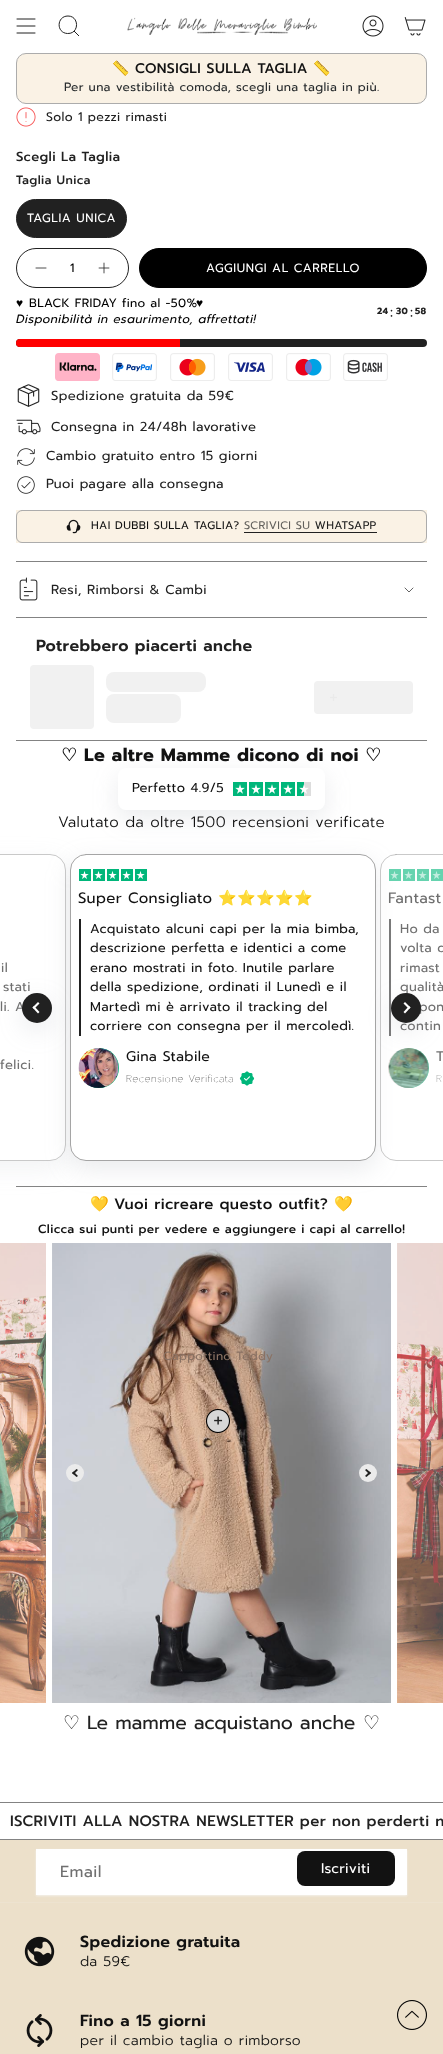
async function draw(canvas) {
  canvas.width = 443;
  canvas.height = 2054;
  const ctx = canvas.getContext('2d');
  ctx.miterLimit = 4;
  ctx.fontKerning = 'normal';
  function label(s, x, y, font, color) {
    ctx.font = font;
    ctx.fillStyle = color;
    ctx.fillText(s, x, y);
  }
  function rect(x, y, w, h, color) {
    ctx.fillStyle = color;
    ctx.fillRect(x, y, w, h);
  }
  function roundedRect(x, y, w, h, r, color) {
    ctx.fillStyle = color;
    ctx.beginPath();
    ctx.roundRect(x, y, w, h, r);
    ctx.fill();
  }
  async function image(src, x, y, w, h) {
    const img = new Image();
    img.src = src;
    await img.decode();
    ctx.drawImage(img, x, y, w, h);
  }
  let gradient, path;

  rect(0, 0, 443, 2054, '#fff');
  path = new Path2D('M17 19H35M17 26H35M17 33H35');
  ctx.strokeStyle = '#212121';
  ctx.lineCap = 'round';
  ctx.lineJoin = 'round';
  ctx.stroke(path);
  path = new Path2D('M68 16C79.5 16 79.5 34 67.5 33.5C56 33 56.5 16 68 16ZM74 31L79 36');
  ctx.lineCap = 'butt';
  ctx.lineJoin = 'miter';
  ctx.stroke(path);
  await image('assets/img1.png', 127, 17, 190, 18);
  await image('assets/img2.png', 362, 15, 22, 22);
  await image('assets/img3.png', 404, 17, 22, 19);
  ctx.fillStyle = '#faf2e5';
  ctx.beginPath();
  ctx.roundRect(16.5, 53.5, 410, 50, 9.5);
  ctx.fill();
  ctx.strokeStyle = '#acacac';
  ctx.stroke();
  ctx.letterSpacing = '0.38px';
  label('📏', 112, 73, '14px Noto Color Emoji', '#121212');
  label('CONSIGLI SULLA TAGLIA', 135, 73, '500 14px Prompt', '#121212');
  label('📏', 313, 73, '14px Noto Color Emoji', '#121212');
  label('Per una vestibilità comoda, scegli una taglia in più.', 64, 91, '12px Prompt', '#282c2e');
  await image('assets/img4.png', 16, 107, 20, 20);
  label('Solo 1 pezzi rimasti', 46, 121, '12.4px Prompt', '#212121');
  label('Scegli La Taglia', 16, 161, '500 13.1px Prompt', '#212121');
  label('Taglia Unica', 16, 184, '500 12px Prompt', '#212121');
  ctx.beginPath();
  ctx.roundRect(16.5, 199.5, 110, 38, 19);
  ctx.fill();
  ctx.strokeStyle = '#212121';
  ctx.stroke();
  ctx.letterSpacing = '0.6px';
  label('TAGLIA UNICA', 27, 222, '12px Prompt', '#fff');
  ctx.beginPath();
  ctx.roundRect(16.5, 248.5, 112, 39, 19.5);
  ctx.stroke();
  path = new Path2D('M36 268H46');
  ctx.lineWidth = 0.8;
  ctx.lineCap = 'round';
  ctx.lineJoin = 'round';
  ctx.stroke(path);
  ctx.letterSpacing = '0px';
  label('1', 70, 272, '12px Prompt', '#000');
  await image('assets/img5.png', 98, 262, 12, 12);
  ctx.beginPath();
  ctx.roundRect(139.5, 248.5, 287, 39, 19.5);
  ctx.fill();
  ctx.strokeStyle = '#000';
  ctx.lineWidth = 1;
  ctx.lineJoin = 'miter';
  ctx.stroke();
  ctx.letterSpacing = '0.6px';
  label('AGGIUNGI AL CARRELLO', 206, 272, '12px Prompt', '#fff');
  ctx.letterSpacing = '0.38px';
  label('♥︎', 16, 307, '12px Liberation Sans', '#000');
  label('BLACK FRIDAY fino al -50%', 29, 307, '12px Prompt', '#000');
  label('♥︎', 196, 307, '12px Liberation Sans', '#000');
  label('Disponibilità in esaurimento, affrettati!', 16, 323, 'italic 12px Prompt', '#000');
  label('24', 377, 314, 'bold 9px Prompt', '#212121');
  label(':', 390, 317, '15px Prompt', '#212121');
  label('30', 396, 314, 'bold 9px Prompt', '#212121');
  label(':', 410, 317, '15px Prompt', '#212121');
  label('58', 415, 314, 'bold 9px Prompt', '#212121');
  roundedRect(16, 339, 411, 8, 4, '#212121');
  ctx.fillStyle = '#f00';
  ctx.beginPath();
  ctx.roundRect(16, 339, 164, 8, [4, 0, 0, 4]);
  ctx.fill();
  await image('assets/img6.png', 55, 353, 45, 28);
  await image('assets/img7.png', 112, 353, 45, 28);
  await image('assets/img8.png', 170, 353, 45, 28);
  await image('assets/img9.png', 228, 353, 45, 28);
  await image('assets/img10.png', 286, 353, 45, 28);
  await image('assets/img11.png', 343, 353, 45, 28);
  await image('assets/img12.png', 17, 384, 23, 23);
  label('Spedizione gratuita da 59€', 51, 400, '13.1px Prompt', '#212121');
  await image('assets/img13.png', 16, 419, 25, 16);
  label('Consegna in 24/48h lavorative', 51, 431, '13.1px Prompt', '#212121');
  await image('assets/img14.png', 17, 448, 18, 18);
  label('Cambio gratuito entro 15 giorni', 46, 460, '13.1px Prompt', '#212121');
  await image('assets/img15.png', 17, 476, 18, 18);
  label('Puoi pagare alla consegna', 46, 488, '13.1px Prompt', '#212121');
  rect(16, 510, 411, 33, '#faf2e5');
  ctx.beginPath();
  ctx.roundRect(16.5, 510.5, 410, 32, 5.5);
  ctx.strokeStyle = '#acacac';
  ctx.stroke();
  await image('assets/img16.png', 66, 519, 15, 15);
  label('HAI DUBBI SULLA TAGLIA?', 91, 529, '11px Prompt', '#121212');
  gradient = ctx.createLinearGradient(244, 527, 377, 527);
  gradient.addColorStop(0, '#62605c');
  gradient.addColorStop(0.5, '#62605c');
  gradient.addColorStop(0.5, '#212121');
  gradient.addColorStop(1, '#212121');
  ctx.fillStyle = gradient;
  ctx.fillText('SCRIVICI SU WHATSAPP', 244, 529);
  rect(244, 532, 133, 1, '#212121');
  rect(16, 561, 411, 1, '#838383');
  rect(16, 617, 411, 1, '#838383');
  await image('assets/img17.png', 19, 577, 19, 24);
  label('Resi, Rimborsi & Cambi', 51, 594, '13.1px Prompt', '#212121');
  path = new Path2D('M405 588L409 592L413 588');
  ctx.strokeStyle = '#212121';
  ctx.lineWidth = 0.7;
  ctx.lineJoin = 'round';
  ctx.stroke(path);
  label('Potrebbero piacerti anche', 36, 651, '600 16px Prompt', '#212121');
  roundedRect(30, 665, 64, 64, 4, '#f1f1f1');
  roundedRect(106, 672, 100, 20, 8, '#f1f1f1');
  roundedRect(106, 694, 75, 29, 8, '#f1f1f1');
  roundedRect(314, 681, 99, 33, 4, '#f1f1f1');
  await image('assets/img18.png', 330, 694, 7, 7);
  rect(16, 740, 411, 1, '#838383');
  label('♡', 61, 761, 'bold 18px DejaVu Sans', '#121212');
  label('Le altre Mamme dicono di noi', 84, 761, 'bold 18px Prompt', '#121212');
  label('♡', 365, 761, 'bold 18px DejaVu Sans', '#121212');
  ctx.fillStyle = '#959da533';
  ctx.filter = 'blur(12px)';
  ctx.beginPath();
  ctx.roundRect(118, 776, 207, 42, 8);
  ctx.fill();
  ctx.filter = 'none';
  roundedRect(118, 768, 207, 42, 8, '#fff');
  label('Perfetto 4.9/5', 132, 792, '13px Prompt', '#121212');
  await image('assets/img19.png', 233, 782, 14, 14);
  await image('assets/img19.png', 249, 782, 14, 14);
  await image('assets/img19.png', 265, 782, 14, 14);
  await image('assets/img19.png', 281, 782, 14, 14);
  await image('assets/img20.png', 297, 782, 14, 14);
  label('Valutato da oltre 1500 recensioni verificate', 58, 827, '300 15px Prompt', '#121212');
  rect(16, 1186, 411, 1, '#838383');
  ctx.fillStyle = '#bfc4c933';
  ctx.filter = 'blur(12px)';
  ctx.beginPath();
  ctx.roundRect(-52, 862, 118, 307, 16);
  ctx.fill();
  ctx.filter = 'none';
  ctx.fillStyle = '#fff';
  ctx.beginPath();
  ctx.roundRect(0, 854, 66, 307, [0, 16, 16, 0]);
  ctx.fill();
  ctx.beginPath();
  ctx.roundRect(-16.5, 854.5, 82, 306, 15.5);
  ctx.strokeStyle = '#c9c9c9';
  ctx.lineWidth = 1;
  ctx.lineJoin = 'miter';
  ctx.stroke();
  label('il', 1, 972, '13px Prompt', '#707070');
  label('stati', 3, 991, '13px Prompt', '#707070');
  label('li. A', 0, 1011, '13px Prompt', '#707070');
  label('felici.', 0, 1069, '13px Prompt', '#707070');
  ctx.fillStyle = '#959da533';
  ctx.filter = 'blur(12px)';
  ctx.beginPath();
  ctx.roundRect(70, 862, 306, 307, 16);
  ctx.fill();
  ctx.filter = 'none';
  ctx.fillStyle = '#fff';
  ctx.beginPath();
  ctx.roundRect(70.5, 854.5, 305, 306, 15.5);
  ctx.fill();
  ctx.strokeStyle = '#a5a5a5';
  ctx.stroke();
  await image('assets/img21.png', 79, 869, 12, 12);
  await image('assets/img21.png', 93, 869, 12, 12);
  await image('assets/img21.png', 107, 869, 12, 12);
  await image('assets/img21.png', 121, 869, 12, 12);
  await image('assets/img21.png', 135, 869, 12, 12);
  label('Super Consigliato', 78, 903, '15px Prompt', '#121212');
  label('⭐⭐⭐⭐⭐', 218, 903, '15px Noto Color Emoji', '#121212');
  rect(79, 919, 2, 117, '#212121');
  label('Acquistato alcuni capi per la mia bimba,', 90, 933, '13px Prompt', '#121212');
  label('descrizione perfetta e identici a come', 90, 952, '13px Prompt', '#121212');
  label('erano mostrati in foto. Inutile parlare', 90, 972, '13px Prompt', '#121212');
  label('della spedizione, ordinati il Lunedì e il', 90, 991, '13px Prompt', '#121212');
  label('Martedì mi è arrivato il tracking del', 90, 1011, '13px Prompt', '#121212');
  label('corriere con consegna per il mercoledì.', 90, 1030, '13px Prompt', '#121212');
  ctx.fillStyle = '#00b67a';
  ctx.beginPath();
  ctx.arc(99, 1068, 20, 0, 2 * Math.PI);
  ctx.fill();
  await image('assets/img22.png', 78, 1048, 41, 40);
  label('Gina Stabile', 126, 1061, '14px Prompt', '#121212');
  label('Recensione Verificata', 126, 1082, '200 10px Prompt', '#121212');
  await image('assets/img23.png', 239, 1071, 16, 15);
  ctx.fillStyle = '#ffffff99';
  ctx.beginPath();
  ctx.roundRect(380, 854, 63, 307, [16, 0, 0, 16]);
  ctx.fill();
  ctx.beginPath();
  ctx.roundRect(380.5, 854.5, 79, 306, 15.5);
  ctx.strokeStyle = '#a5a5a599';
  ctx.stroke();
  await image('assets/img24.png', 389, 869, 12, 12);
  await image('assets/img25.png', 403, 869, 12, 12);
  await image('assets/img25.png', 417, 869, 12, 12);
  await image('assets/img25.png', 431, 869, 12, 12);
  label('Fantast', 388, 903, '15px Prompt', '#707070');
  rect(389, 919, 2, 117, '#797979');
  label('Ho da', 400, 933, '13px Prompt', '#707070');
  label('volta d', 400, 952, '13px Prompt', '#707070');
  label('rimast', 400, 972, '13px Prompt', '#707070');
  label('qualità', 400, 991, '13px Prompt', '#707070');
  label('pon', 419, 1011, '13px Prompt', '#707070');
  label('contin', 400, 1030, '13px Prompt', '#707070');
  ctx.fillStyle = '#66d3af';
  ctx.beginPath();
  ctx.arc(409, 1068, 20, 0, 2 * Math.PI);
  ctx.fill();
  await image('assets/img26.png', 388, 1048, 41, 40);
  label('T', 436, 1061, '14px Prompt', '#707070');
  label('R', 436, 1082, '200 10px Prompt', '#707070');
  ctx.fillStyle = '#959da533';
  ctx.filter = 'blur(12px)';
  ctx.beginPath();
  ctx.roundRect(22, 1001, 30, 30, 15);
  ctx.fill();
  ctx.filter = 'none';
  ctx.fillStyle = '#212121';
  ctx.beginPath();
  ctx.arc(37, 1008, 15, 0, 2 * Math.PI);
  ctx.fill();
  ctx.fillStyle = '#fff';
  path = new Path2D('M34 1006L39.5 1012L38 1013.5L32.5 1007.5Z');
  ctx.fill(path);
  path = new Path2D('M38 1002L39.5 1003.5L34 1009L32.5 1007.5Z');
  ctx.fill(path);
  ctx.fillStyle = '#959da533';
  ctx.filter = 'blur(12px)';
  ctx.beginPath();
  ctx.roundRect(391, 1001, 30, 30, 15);
  ctx.fill();
  ctx.filter = 'none';
  ctx.fillStyle = '#212121';
  ctx.beginPath();
  ctx.arc(406, 1008, 15, 0, 2 * Math.PI);
  ctx.fill();
  ctx.fillStyle = '#fff';
  path = new Path2D('M405 1002L410.5 1007.5L409 1009L403.5 1003.5Z');
  ctx.fill(path);
  path = new Path2D('M409 1006L410.5 1007.5L405 1013.5L403.5 1012Z');
  ctx.fill(path);
  label('💛', 90, 1209, '15px Noto Color Emoji', '#121212');
  label('Vuoi ricreare questo outfit?', 114, 1209, '500 15px Prompt', '#121212');
  label('💛', 334, 1209, '15px Noto Color Emoji', '#121212');
  label('Clicca sui punti per vedere e aggiungere i capi al carrello!', 38, 1233, '500 12px Prompt', '#121212');
  await image('assets/img27.png', 0, 1243, 46, 460);
  await image('assets/img28.png', 52, 1243, 339, 460);
  label('Cappottino Teddy', 163, 1360, '12px Prompt', '#8a7264');
  await image('assets/img29.png', 206, 1409, 24, 24);
  await image('assets/img30.png', 397, 1243, 46, 460);
  ctx.fillStyle = '#ebebeb';
  ctx.beginPath();
  ctx.arc(75, 1473, 9, 0, 2 * Math.PI);
  ctx.fill();
  ctx.fillStyle = '#212121';
  path = new Path2D('M73.5 1471.5L78 1476L76.5 1477L72 1473Z');
  ctx.fill(path);
  path = new Path2D('M76.5 1469L78 1470L73.5 1474.5L72 1473Z');
  ctx.fill(path);
  ctx.fillStyle = '#ebebeb';
  ctx.beginPath();
  ctx.arc(368, 1473, 9, 0, 2 * Math.PI);
  ctx.fill();
  ctx.fillStyle = '#212121';
  path = new Path2D('M366.5 1469L371 1473L369.5 1474.5L365 1470Z');
  ctx.fill(path);
  path = new Path2D('M369.5 1471.5L371 1473L366.5 1477L365 1476Z');
  ctx.fill(path);
  ctx.letterSpacing = '0px';
  label('♡', 63, 1729, '19px DejaVu Sans', '#212121');
  label('Le mamme acquistano anche', 87, 1729, '19px Prompt', '#212121');
  label('♡', 363, 1729, '19px DejaVu Sans', '#212121');
  rect(0, 1802, 443, 1, '#838383');
  rect(0, 1839, 443, 1, '#838383');
  ctx.letterSpacing = '0.38px';
  label('ISCRIVITI ALLA NOSTRA NEWSLETTER per non perderti n', 10, 1826, '500 15px Prompt', '#212121');
  rect(0, 1840, 443, 214, '#ece0ca');
  ctx.fillStyle = '#f5f5f5cc';
  ctx.filter = 'blur(1px)';
  ctx.beginPath();
  ctx.rect(36, 1850, 371, 46);
  ctx.fill();
  ctx.filter = 'none';
  rect(36, 1849, 371, 46, '#fff');
  ctx.letterSpacing = '0.5px';
  label('Email', 60, 1877, '16px Prompt', '#707070');
  roundedRect(297, 1851, 98, 35, 8, '#121212');
  ctx.letterSpacing = '0.25px';
  label('Iscriviti', 321, 1873, '14px Prompt', '#fff');
  rect(0, 1902, 443, 1, '#ede3d0');
  await image('assets/img31.png', 24, 1936, 31, 31);
  ctx.letterSpacing = '0.38px';
  label('Spedizione gratuita', 80, 1947, '600 16px Prompt', '#121212');
  label('da 59€', 80, 1966, '300 14px Prompt', '#121212');
  await image('assets/img32.png', 26, 2014, 27, 33);
  label('Fino a 15 giorni', 80, 2026, '600 16px Prompt', '#121212');
  label('per il cambio taglia o rimborso', 80, 2045, '300 14px Prompt', '#121212');
  await image('assets/img33.png', 397, 2000, 30, 30);
}

draw(document.querySelector('canvas'));
